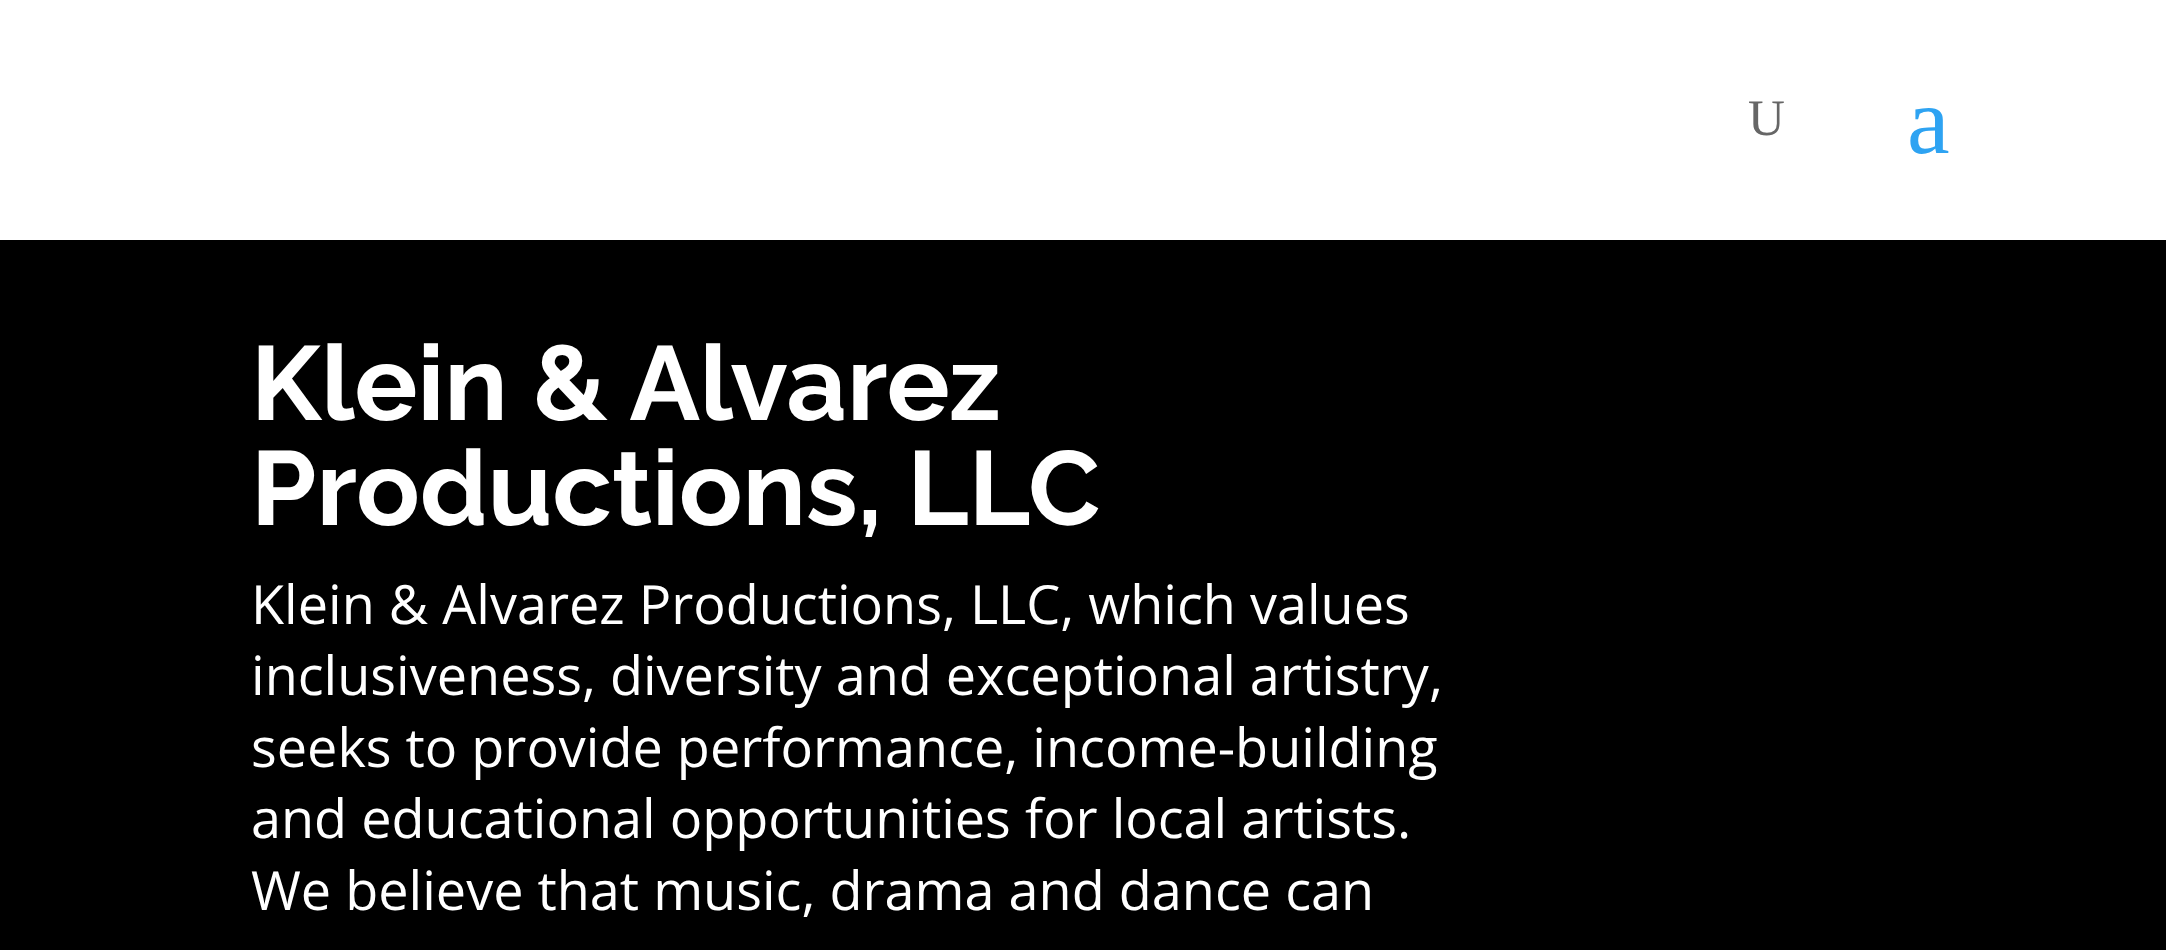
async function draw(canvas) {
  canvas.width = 2166;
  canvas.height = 950;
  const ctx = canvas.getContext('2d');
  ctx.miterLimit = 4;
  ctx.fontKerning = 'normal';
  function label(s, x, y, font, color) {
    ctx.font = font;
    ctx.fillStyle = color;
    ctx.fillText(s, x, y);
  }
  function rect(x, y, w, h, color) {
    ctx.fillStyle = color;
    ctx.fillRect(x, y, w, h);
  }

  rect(0, 0, 2166, 950, '#fff');
  label('U', 1748, 135, '51px Liberation Serif', '#666');
  label('a', 1907, 153, '96px Liberation Serif', '#2ea3f2');
  rect(0, 240, 2166, 710, '#000');
  label('Klein & Alvarez', 251, 420, '100 105px Raleway', '#fff');
  label('Productions, LLC', 251, 525, '100 105px Raleway', '#fff');
  label('Klein & Alvarez Productions, LLC, which values', 251, 624, '54px Open Sans', '#fff');
  label('inclusiveness, diversity and exceptional artistry,', 251, 695, '54px Open Sans', '#fff');
  label('seeks to provide performance, income-building', 251, 767, '54px Open Sans', '#fff');
  label('and educational opportunities for local artists.', 251, 838, '54px Open Sans', '#fff');
  label('We believe that music, drama and dance can', 251, 910, '54px Open Sans', '#fff');
}

draw(document.querySelector('canvas'));
